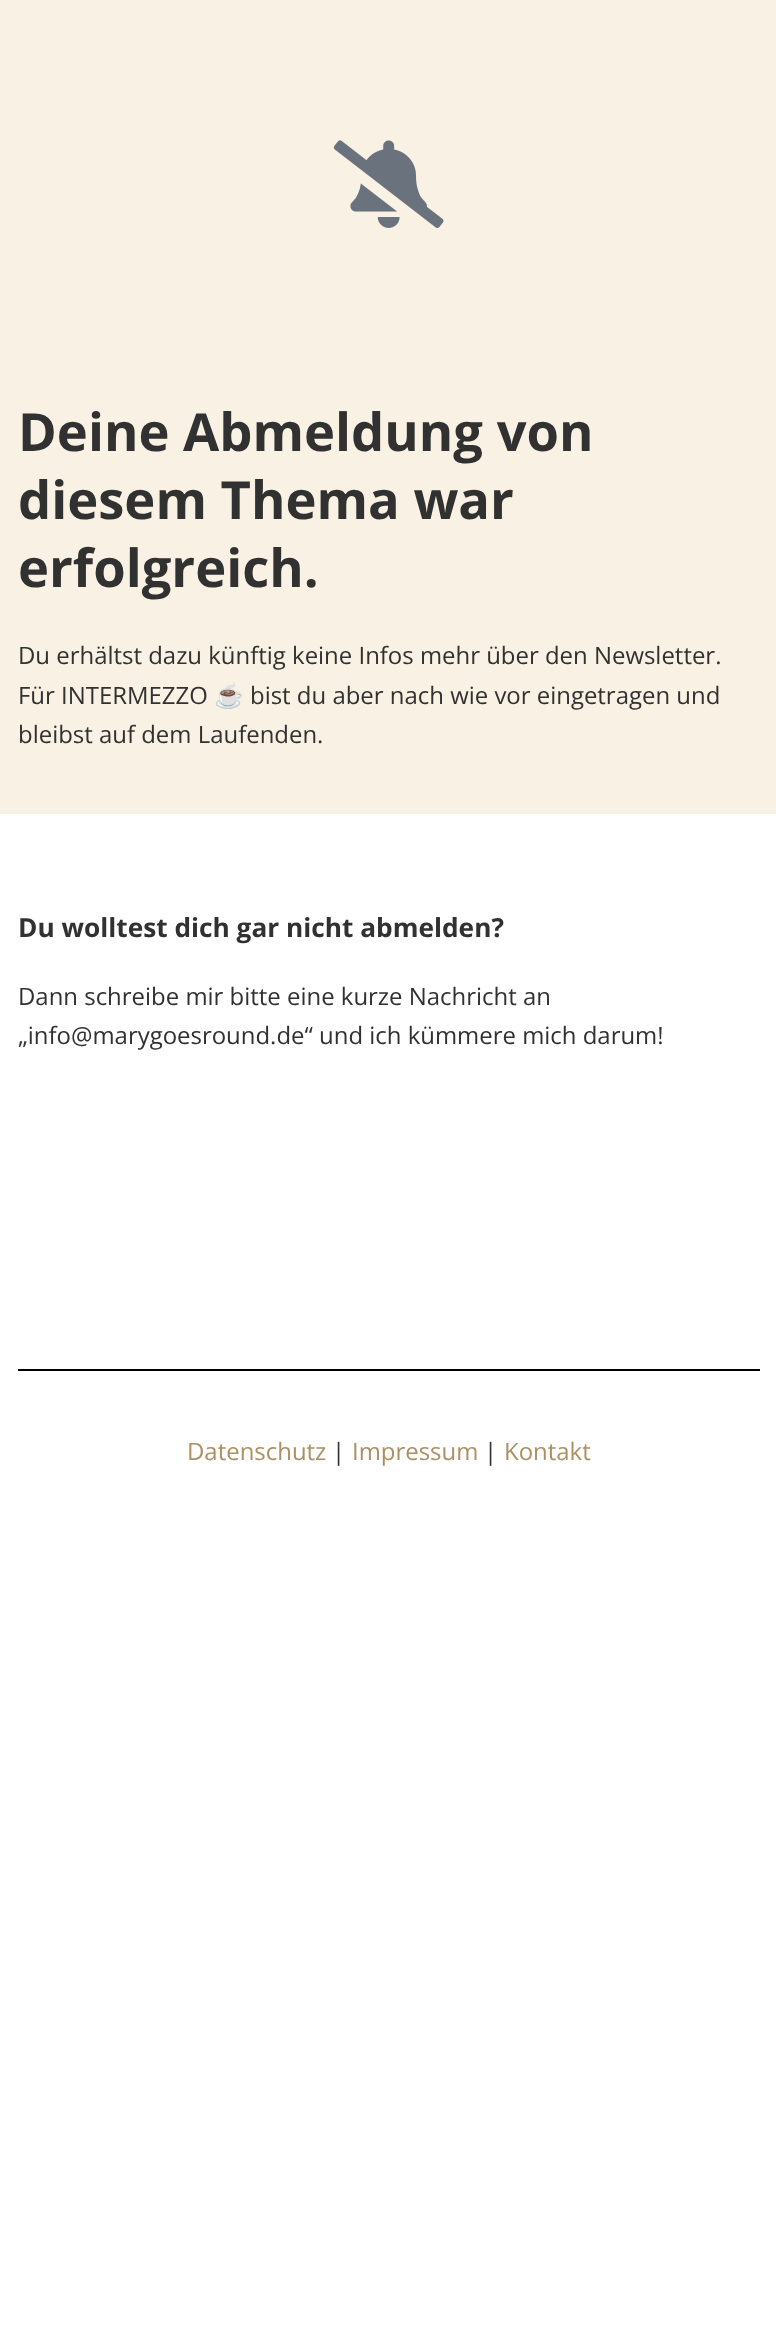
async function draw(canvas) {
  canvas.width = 776;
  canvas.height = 2352;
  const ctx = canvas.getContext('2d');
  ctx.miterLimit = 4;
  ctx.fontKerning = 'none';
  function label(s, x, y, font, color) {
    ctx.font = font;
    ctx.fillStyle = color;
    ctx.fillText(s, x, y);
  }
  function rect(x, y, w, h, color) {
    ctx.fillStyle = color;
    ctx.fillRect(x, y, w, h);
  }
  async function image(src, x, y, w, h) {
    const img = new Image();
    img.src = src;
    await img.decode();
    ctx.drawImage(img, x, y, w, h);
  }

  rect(0, 0, 776, 2352, '#fff');
  rect(0, 0, 776, 814, '#f9f1e3');
  await image('assets/img1.png', 333, 140, 111, 88);
  label('Deine Abmeldung von', 18, 451, 'bold 52.5px Open Sans', '#313131');
  label('diesem Thema war', 18, 519, 'bold 52.5px Open Sans', '#313131');
  label('erfolgreich.', 18, 587, 'bold 52.5px Open Sans', '#313131');
  label('Du erhältst dazu künftig keine Infos mehr über den Newsletter.', 18, 664, '23.95px Open Sans', '#313131');
  label('Für INTERMEZZO', 18, 704, '23.95px Open Sans', '#313131');
  label('☕', 214, 704, '23.95px Noto Color Emoji', '#313131');
  label('bist du aber nach wie vor eingetragen und', 250, 704, '23.95px Open Sans', '#313131');
  label('bleibst auf dem Laufenden.', 18, 743, '23.95px Open Sans', '#313131');
  label('Du wolltest dich gar nicht abmelden?', 18, 937, 'bold 26.25px Open Sans', '#313131');
  label('Dann schreibe mir bitte eine kurze Nachricht an', 18, 1005, '23.95px Open Sans', '#313131');
  label('„info@marygoesround.de“ und ich kümmere mich darum!', 18, 1044, '23.95px Open Sans', '#313131');
  rect(18, 1369, 742, 2, '#000');
  label('Datenschutz', 187, 1460, '23.95px Open Sans', '#ad8f62');
  label('|', 332, 1460, '23.95px Open Sans', '#313131');
  label('Impressum', 352, 1460, '23.95px Open Sans', '#ad8f62');
  label('|', 484, 1460, '23.95px Open Sans', '#313131');
  label('Kontakt', 504, 1460, '23.95px Open Sans', '#ad8f62');
}

draw(document.querySelector('canvas'));
